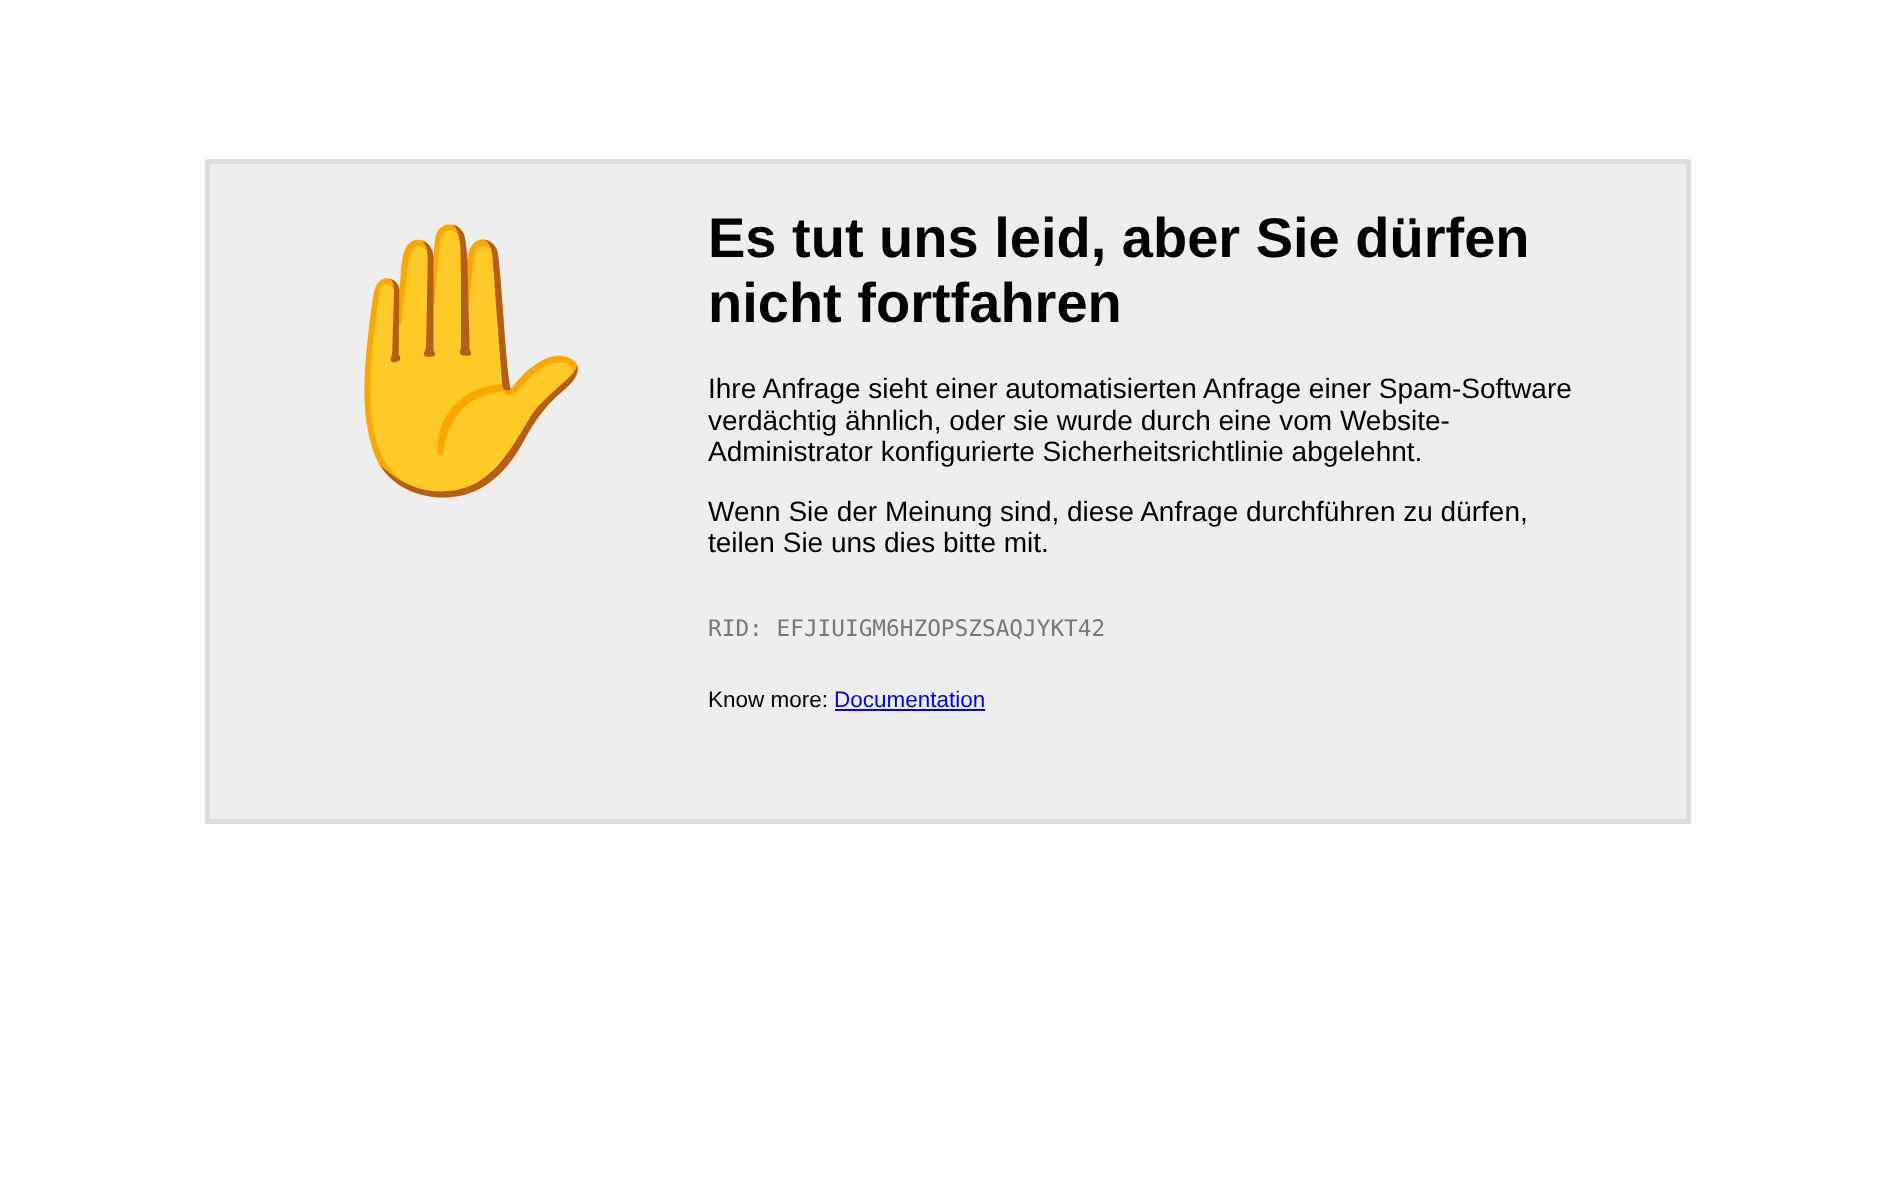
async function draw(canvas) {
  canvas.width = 1894;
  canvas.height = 1179;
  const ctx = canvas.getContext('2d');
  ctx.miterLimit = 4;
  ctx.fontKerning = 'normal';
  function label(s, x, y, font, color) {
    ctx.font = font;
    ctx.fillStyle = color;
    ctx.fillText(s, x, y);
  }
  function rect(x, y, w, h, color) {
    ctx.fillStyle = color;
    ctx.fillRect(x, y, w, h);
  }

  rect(0, 0, 1894, 1179, '#fff');
  ctx.fillStyle = '#eee';
  ctx.beginPath();
  ctx.rect(207.5, 161.5, 1481, 660);
  ctx.fill();
  ctx.strokeStyle = '#ddd';
  ctx.lineWidth = 5;
  ctx.stroke();
  label('✋', 294, 450, '262px Noto Color Emoji', '#f00');
  label('Es tut uns leid, aber Sie dürfen', 708, 257, 'bold 56px Liberation Sans', '#000');
  label('nicht fortfahren', 708, 322, 'bold 56px Liberation Sans', '#000');
  label('Ihre Anfrage sieht einer automatisierten Anfrage einer Spam-Software', 708, 398, '28px Liberation Sans', '#000');
  label('verdächtig ähnlich, oder sie wurde durch eine vom Website-', 708, 430, '28px Liberation Sans', '#000');
  label('Administrator konfigurierte Sicherheitsrichtlinie abgelehnt.', 708, 461, '28px Liberation Sans', '#000');
  label('Wenn Sie der Meinung sind, diese Anfrage durchführen zu dürfen,', 708, 521, '28px Liberation Sans', '#000');
  label('teilen Sie uns dies bitte mit.', 708, 552, '28px Liberation Sans', '#000');
  label('RID: EFJIUIGM6HZOPSZSAQJYKT42', 708, 636, '22.75px DejaVu Sans Mono', '#777');
  label('Know more:', 708, 707, '22.5px Liberation Sans', '#000');
  label('Documentation', 834, 707, '22.5px Liberation Sans', '#00e');
  rect(835, 709, 150, 2, '#00e');
}

draw(document.querySelector('canvas'));
